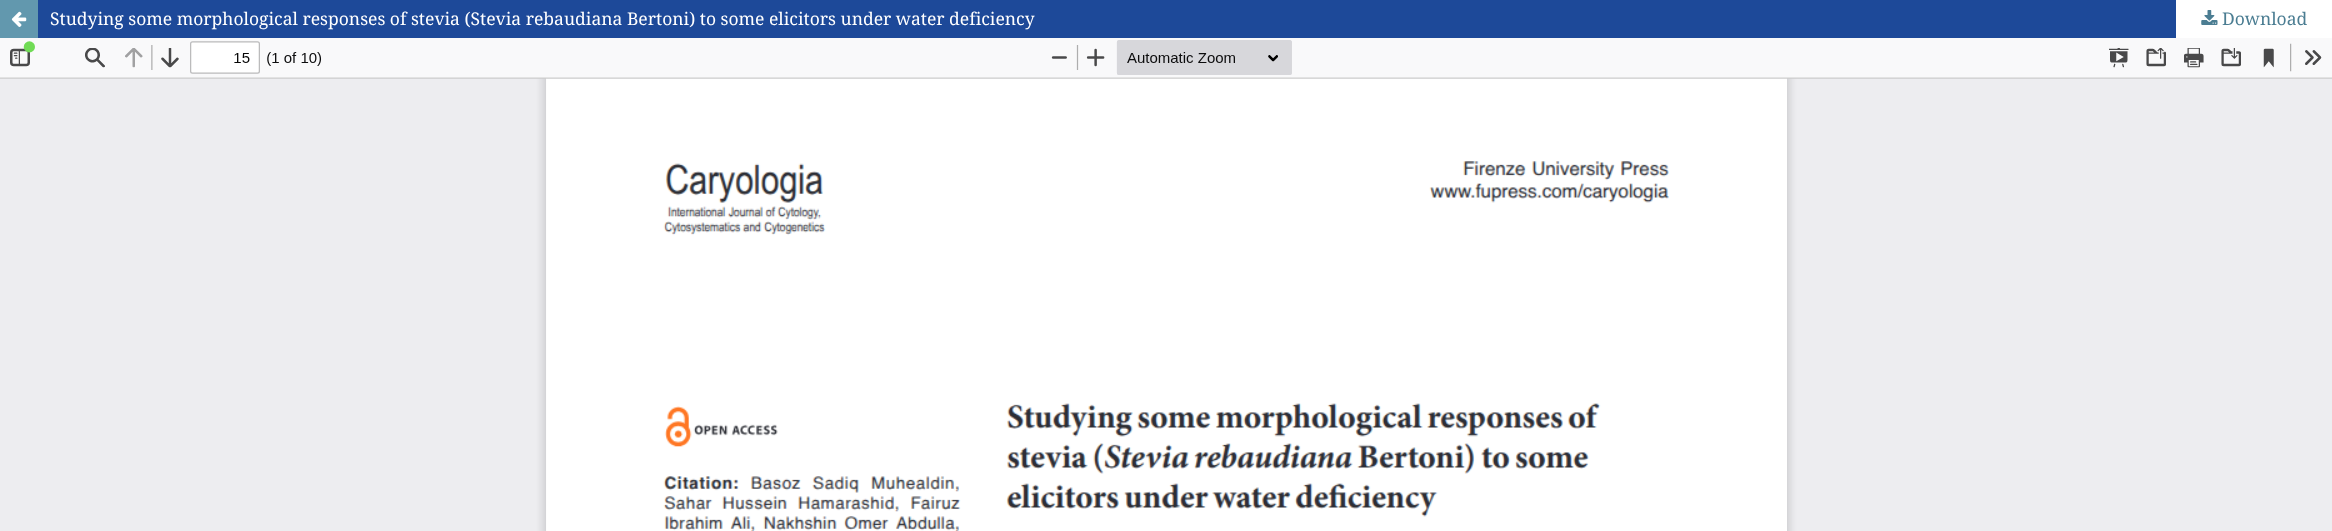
async function draw(canvas) {
  canvas.width = 2332;
  canvas.height = 531;
  const ctx = canvas.getContext('2d');
  ctx.miterLimit = 4;
  ctx.fontKerning = 'normal';
  function label(s, x, y, font, color) {
    ctx.font = font;
    ctx.fillStyle = color;
    ctx.fillText(s, x, y);
  }
  function rect(x, y, w, h, color) {
    ctx.fillStyle = color;
    ctx.fillRect(x, y, w, h);
  }
  async function image(src, x, y, w, h) {
    const img = new Image();
    img.src = src;
    await img.decode();
    ctx.drawImage(img, x, y, w, h);
  }

  rect(0, 0, 2332, 531, '#fff');
  rect(38, 0, 2138, 38, '#1d4999');
  rect(0, 0, 38, 38, '#6298ae');
  await image('assets/img1.png', 11, 11, 16, 16);
  label('Studying some morphological responses of stevia (Stevia rebaudiana Bertoni) to some elicitors under water deficiency', 50, 25, '17.5px Noto Serif', '#fff');
  await image('assets/img2.png', 2201, 10, 17, 15);
  label('Download', 2222, 25, '17.5px Noto Serif', '#4b7d92');
  await image('assets/img3.png', 0, 38, 2332, 493);
}

draw(document.querySelector('canvas'));
